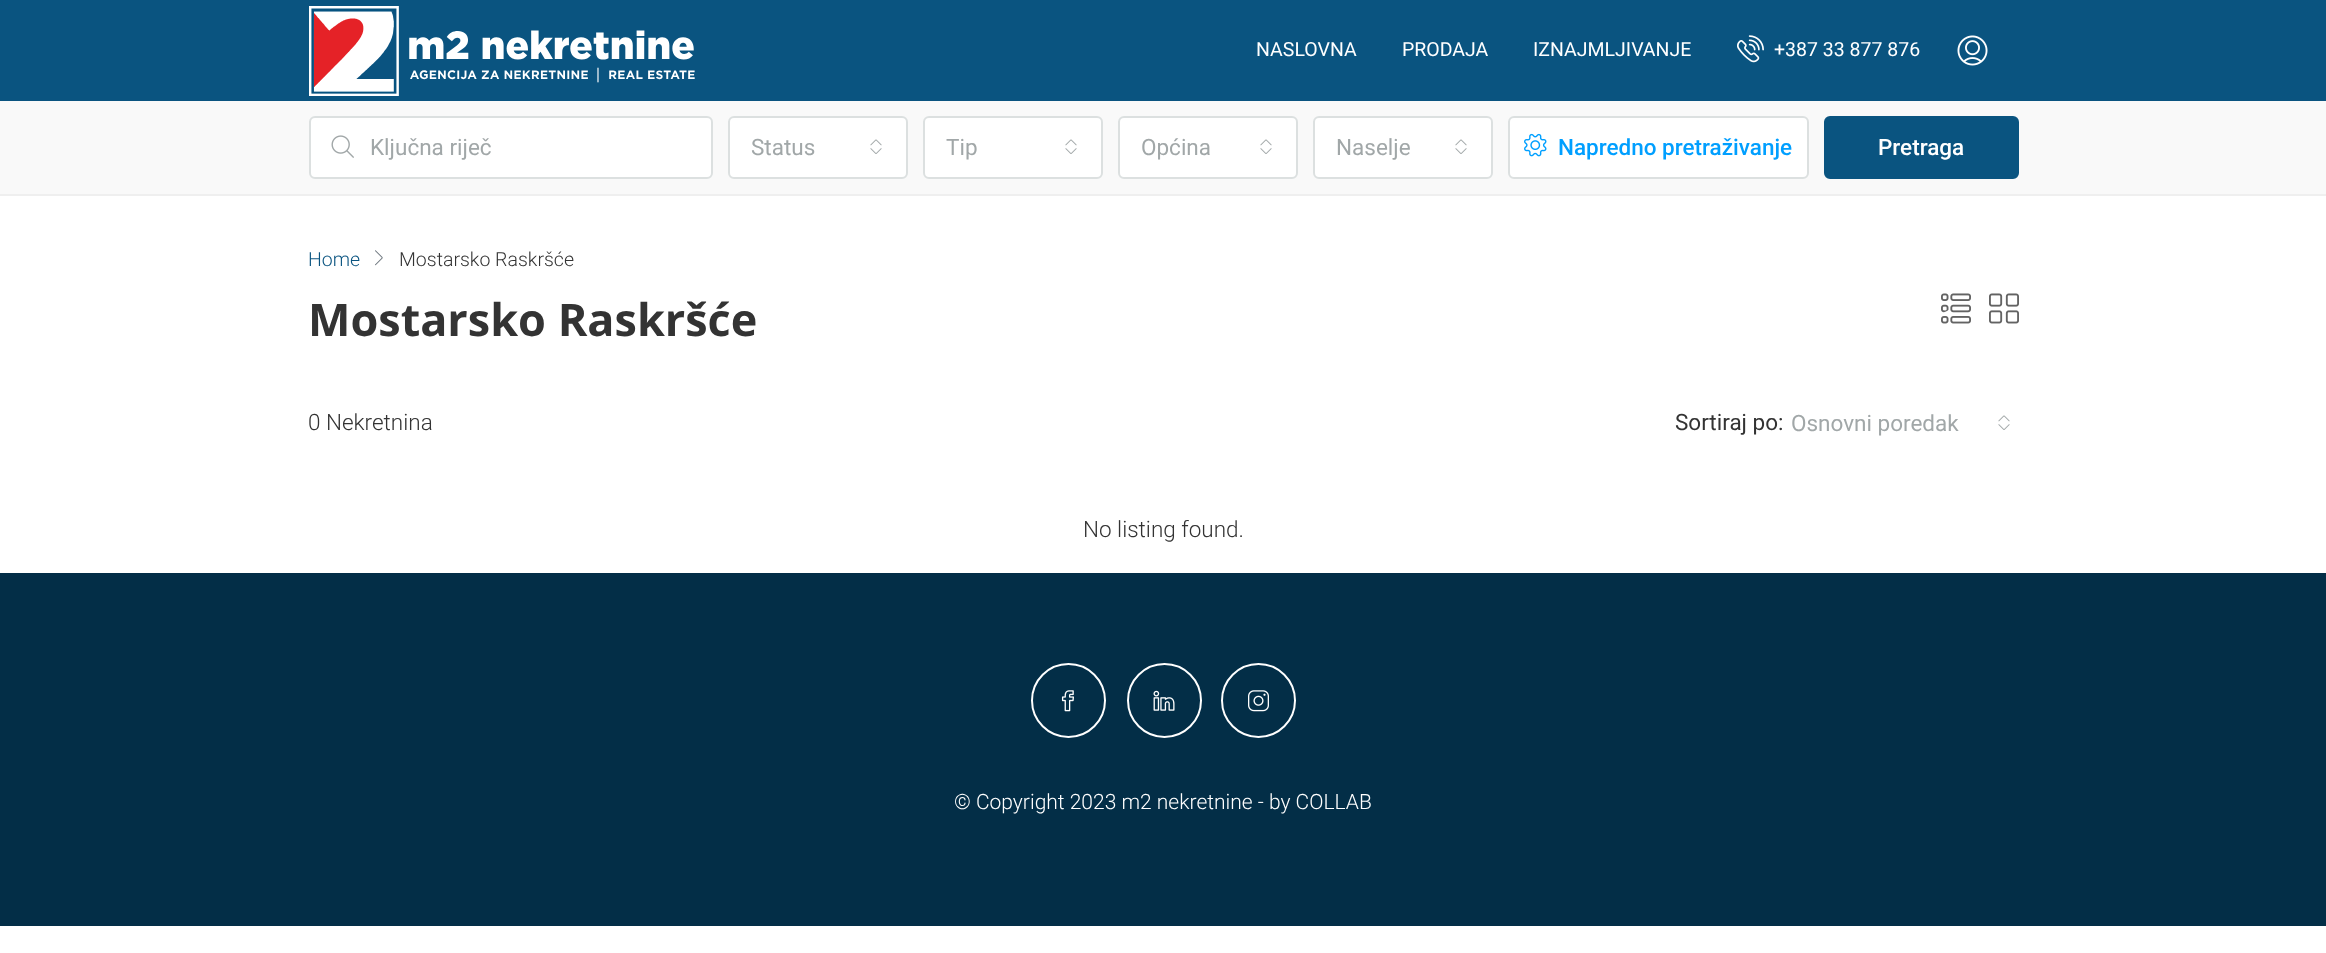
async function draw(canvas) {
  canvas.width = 2326;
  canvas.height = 953;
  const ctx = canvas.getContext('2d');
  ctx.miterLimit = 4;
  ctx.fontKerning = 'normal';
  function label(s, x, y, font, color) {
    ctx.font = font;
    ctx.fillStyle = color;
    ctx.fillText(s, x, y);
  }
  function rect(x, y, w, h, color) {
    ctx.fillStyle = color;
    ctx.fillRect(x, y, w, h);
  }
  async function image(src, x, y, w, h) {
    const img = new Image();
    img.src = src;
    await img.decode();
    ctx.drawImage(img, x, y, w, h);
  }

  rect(0, 0, 2326, 953, '#fff');
  rect(0, 194, 2326, 2, '#efefef');
  rect(0, 0, 2326, 101, '#0a5480');
  await image('assets/img1.png', 309, 6, 386, 90);
  label('NASLOVNA', 1256, 56, '19.5px Roboto', '#fff');
  label('PRODAJA', 1402, 56, '19.5px Roboto', '#fff');
  label('IZNAJMLJIVANJE', 1533, 56, '19.5px Roboto', '#fff');
  await image('assets/img2.png', 1737, 35, 27, 28);
  label('+387 33 877 876', 1774, 56, '19.5px Roboto', '#fff');
  await image('assets/img3.png', 1957, 35, 31, 31);
  rect(0, 101, 2326, 93, '#f9f9f9');
  ctx.fillStyle = '#fff';
  ctx.beginPath();
  ctx.roundRect(310, 117, 402, 61, 5);
  ctx.fill();
  ctx.strokeStyle = '#dce0e0';
  ctx.lineWidth = 2;
  ctx.stroke();
  await image('assets/img4.png', 331, 135, 23, 23);
  label('Ključna riječ', 370, 155, '22.5px Roboto', '#a1a7a8');
  ctx.fillStyle = '#fff';
  ctx.beginPath();
  ctx.roundRect(729, 117, 178, 61, 5);
  ctx.fill();
  ctx.stroke();
  label('Status', 751, 155, '22.5px Roboto', '#a1a7a8');
  await image('assets/img5.png', 870, 139, 12, 15);
  ctx.fillStyle = '#fff';
  ctx.beginPath();
  ctx.roundRect(924, 117, 178, 61, 5);
  ctx.fill();
  ctx.stroke();
  label('Tip', 946, 155, '22.5px Roboto', '#a1a7a8');
  await image('assets/img5.png', 1065, 139, 12, 15);
  ctx.fillStyle = '#fff';
  ctx.beginPath();
  ctx.roundRect(1119, 117, 178, 61, 5);
  ctx.fill();
  ctx.stroke();
  label('Općina', 1141, 155, '22.5px Roboto', '#a1a7a8');
  await image('assets/img5.png', 1260, 139, 12, 15);
  ctx.fillStyle = '#fff';
  ctx.beginPath();
  ctx.roundRect(1314, 117, 178, 61, 5);
  ctx.fill();
  ctx.stroke();
  label('Naselje', 1336, 155, '22.5px Roboto', '#a1a7a8');
  await image('assets/img5.png', 1455, 139, 12, 15);
  ctx.fillStyle = '#fff';
  ctx.beginPath();
  ctx.roundRect(1509, 117, 299, 61, 5);
  ctx.fill();
  ctx.stroke();
  await image('assets/img6.png', 1524, 133, 23, 24);
  label('Napredno pretraživanje', 1558, 155, '500 22.5px Roboto', '#009fff');
  ctx.fillStyle = '#0a5480';
  ctx.beginPath();
  ctx.roundRect(1825, 117, 193, 61, 5);
  ctx.fill();
  ctx.strokeStyle = '#0a5480';
  ctx.stroke();
  label('Pretraga', 1878, 155, '500 22.5px Roboto', '#fff');
  label('Home', 308, 266, '300 19.5px Roboto', '#0a5480');
  await image('assets/img7.png', 375, 250, 8, 16);
  label('Mostarsko Raskršće', 399, 266, '300 19.5px Roboto', '#333');
  label('Mostarsko Raskršće', 308, 336, 'bold 45px Open Sans', '#333');
  await image('assets/img8.png', 1941, 293, 30, 31);
  await image('assets/img9.png', 1989, 293, 30, 31);
  label('0 Nekretnina', 308, 430, '300 22.5px Roboto', '#333');
  label('Sortiraj po:', 1675, 430, '22.5px Roboto', '#333');
  label('Osnovni poredak', 1791, 431, '22.5px Roboto', '#a1a7a8');
  await image('assets/img5.png', 1998, 415, 12, 15);
  label('No listing found.', 1083, 537, '300 22.5px Roboto', '#333');
  rect(0, 573, 2326, 353, '#032e47');
  ctx.beginPath();
  ctx.arc(1068.5, 700.5, 36.5, 0, 2 * Math.PI);
  ctx.strokeStyle = '#fff';
  ctx.stroke();
  await image('assets/img10.png', 1061, 690, 13, 22);
  ctx.beginPath();
  ctx.arc(1164.5, 700.5, 36.5, 0, 2 * Math.PI);
  ctx.stroke();
  await image('assets/img11.png', 1153, 690, 22, 21);
  ctx.beginPath();
  ctx.arc(1258.5, 700.5, 36.5, 0, 2 * Math.PI);
  ctx.stroke();
  await image('assets/img12.png', 1248, 690, 21, 22);
  label('© Copyright 2023 m2 nekretnine - by COLLAB', 954, 809, '300 21px Roboto', '#fff');
}

draw(document.querySelector('canvas'));
